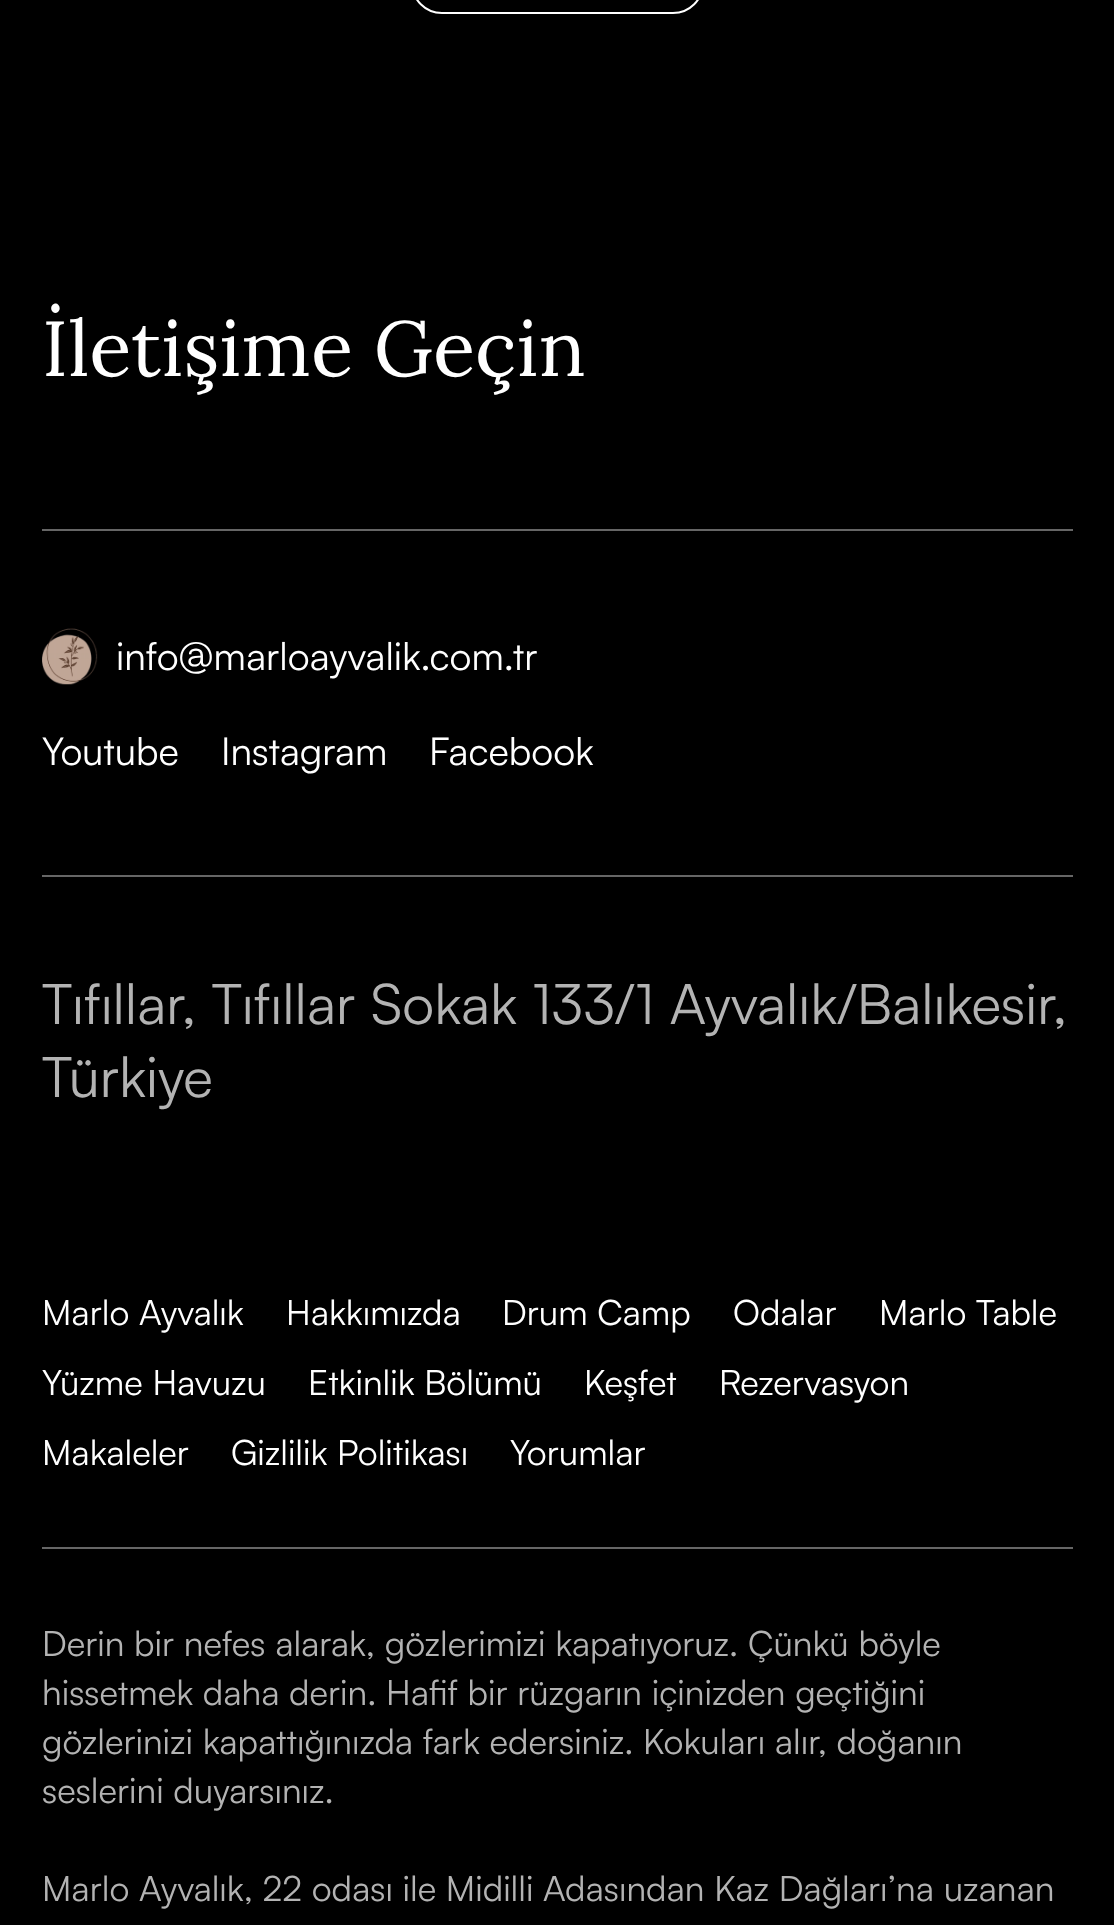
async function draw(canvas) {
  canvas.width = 1114;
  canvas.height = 1925;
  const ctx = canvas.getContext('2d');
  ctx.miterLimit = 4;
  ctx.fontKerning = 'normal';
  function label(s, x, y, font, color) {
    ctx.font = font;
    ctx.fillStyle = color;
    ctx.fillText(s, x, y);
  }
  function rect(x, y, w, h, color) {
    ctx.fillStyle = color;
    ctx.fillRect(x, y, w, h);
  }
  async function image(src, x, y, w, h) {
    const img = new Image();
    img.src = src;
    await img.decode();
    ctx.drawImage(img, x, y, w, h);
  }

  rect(0, 0, 1114, 1925, '#000');
  ctx.beginPath();
  ctx.roundRect(412, -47, 291, 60, 44.5);
  ctx.strokeStyle = '#fff';
  ctx.lineWidth = 2;
  ctx.stroke();
  label('İletişime Geçin', 42, 376, '78px Lora', '#fff');
  rect(42, 529, 1031, 2, '#666');
  rect(42, 875, 1031, 2, '#666');
  await image('assets/img1.png', 42, 628, 56, 57);
  label('info@marloayvalik.com.tr', 116, 670, '38.5px Satoshi', '#fff');
  label('Youtube', 42, 765, '38.5px Satoshi', '#fff');
  label('Instagram', 221, 765, '38.5px Satoshi', '#fff');
  label('Facebook', 429, 765, '38.5px Satoshi', '#fff');
  label('Tıfıllar, Tıfıllar Sokak 133/1 Ayvalık/Balıkesir,', 42, 1024, '56px Satoshi', '#b3b3b3');
  label('Türkiye', 42, 1097, '56px Satoshi', '#b3b3b3');
  label('Marlo Ayvalık', 42, 1325, '35px Satoshi', '#fff');
  label('Hakkımızda', 286, 1325, '35px Satoshi', '#fff');
  label('Drum Camp', 502, 1325, '35px Satoshi', '#fff');
  label('Odalar', 733, 1325, '35px Satoshi', '#fff');
  label('Marlo Table', 879, 1325, '35px Satoshi', '#fff');
  label('Yüzme Havuzu', 42, 1395, '35px Satoshi', '#fff');
  label('Etkinlik Bölümü', 308, 1395, '35px Satoshi', '#fff');
  label('Keşfet', 584, 1395, '35px Satoshi', '#fff');
  label('Rezervasyon', 719, 1395, '35px Satoshi', '#fff');
  label('Makaleler', 42, 1465, '35px Satoshi', '#fff');
  label('Gizlilik Politikası', 231, 1465, '35px Satoshi', '#fff');
  label('Yorumlar', 510, 1465, '35px Satoshi', '#fff');
  rect(42, 1547, 1031, 2, '#666');
  label('Derin bir nefes alarak, gözlerimizi kapatıyoruz. Çünkü böyle', 42, 1656, '35px Satoshi', '#b3b3b3');
  label('hissetmek daha derin. Hafif bir rüzgarın içinizden geçtiğini', 42, 1705, '35px Satoshi', '#b3b3b3');
  label('gözlerinizi kapattığınızda fark edersiniz. Kokuları alır, doğanın', 42, 1754, '35px Satoshi', '#b3b3b3');
  label('seslerini duyarsınız.', 42, 1803, '35px Satoshi', '#b3b3b3');
  label('Marlo Ayvalık, 22 odası ile Midilli Adasından Kaz Dağları’na uzanan', 42, 1901, '35px Satoshi', '#b3b3b3');
}

draw(document.querySelector('canvas'));
